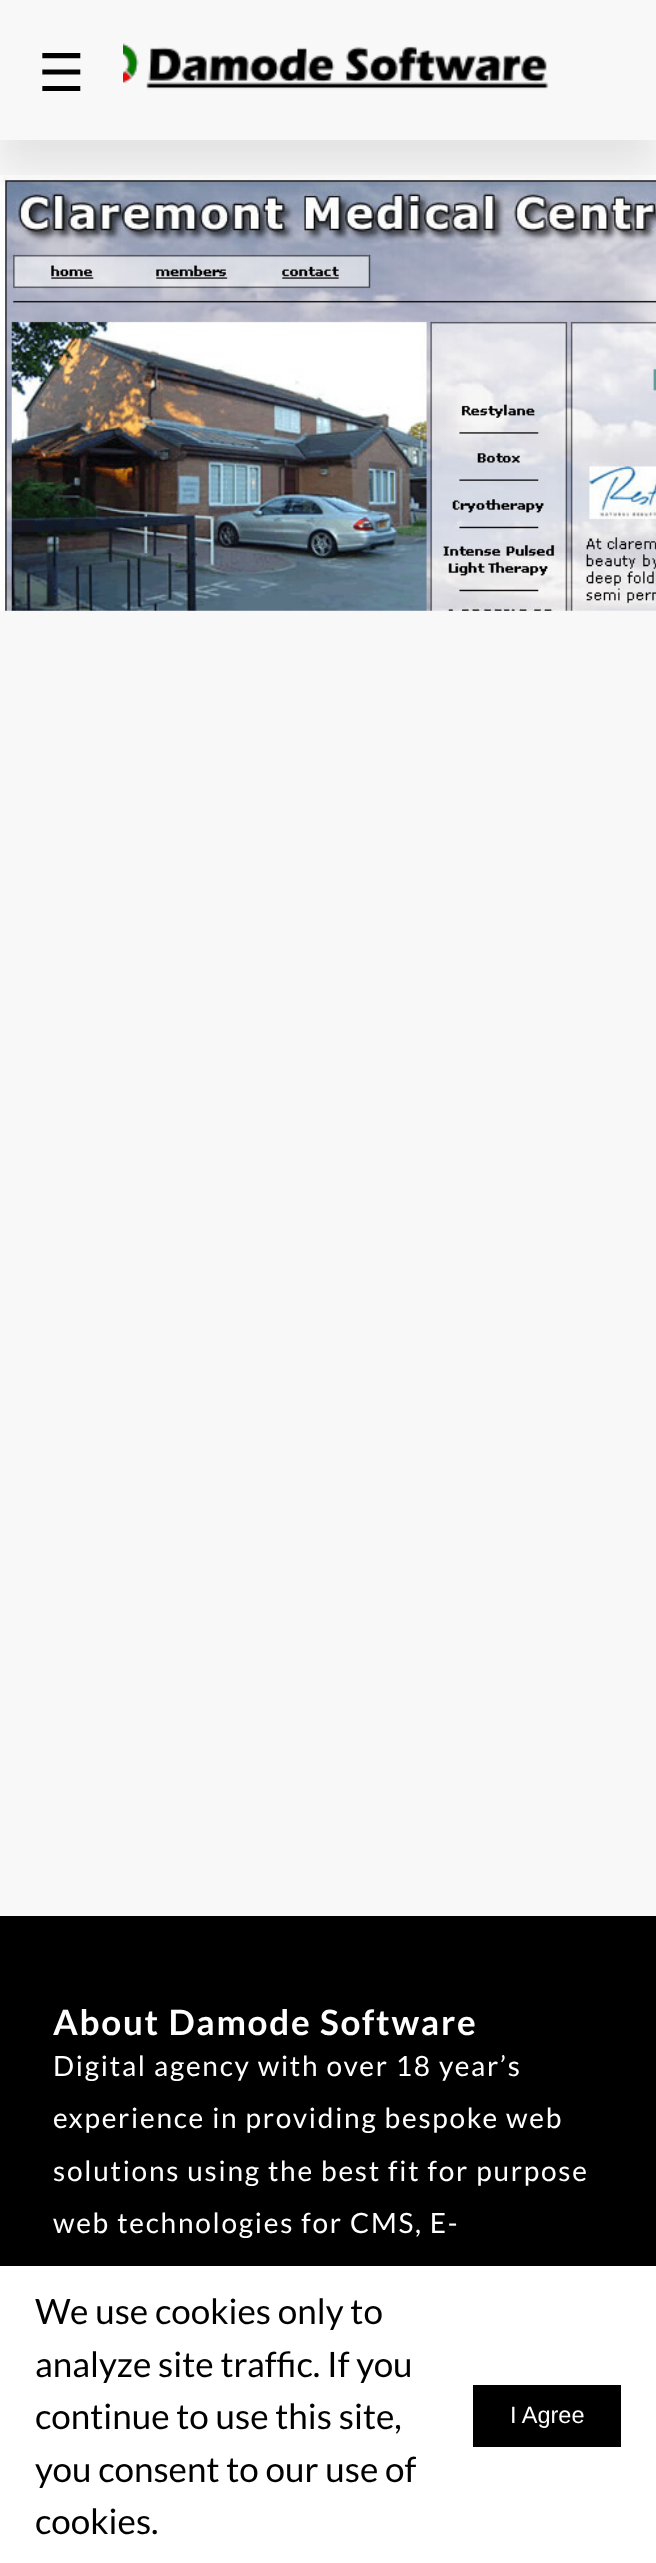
async function draw(canvas) {
  canvas.width = 656;
  canvas.height = 2563;
  const ctx = canvas.getContext('2d');
  ctx.miterLimit = 4;
  ctx.fontKerning = 'normal';
  function label(s, x, y, font, color) {
    ctx.font = font;
    ctx.fillStyle = color;
    ctx.fillText(s, x, y);
  }
  function rect(x, y, w, h, color) {
    ctx.fillStyle = color;
    ctx.fillRect(x, y, w, h);
  }
  async function image(src, x, y, w, h) {
    const img = new Image();
    img.src = src;
    await img.decode();
    ctx.drawImage(img, x, y, w, h);
  }

  rect(0, 0, 656, 2563, '#f8f8f8');
  await image('assets/img2.png', 0, 175, 656, 436);
  ctx.save();
  ctx.beginPath();
  ctx.rect(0, 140, 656, 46);
  ctx.clip();
  ctx.fillStyle = '#3031331a';
  ctx.filter = 'blur(21px)';
  ctx.beginPath();
  ctx.rect(0, 28, 656, 140);
  ctx.fill();
  ctx.filter = 'none';
  ctx.restore();
  label('☰', 38, 91, '52px DejaVu Sans', '#000');
  await image('assets/img1.png', 123, 43, 426, 47);
  rect(0, 1916, 656, 350, '#000');
  ctx.letterSpacing = '1.75px';
  label('About Damode Software', 53, 2035, 'bold 35px Lato', '#fff');
  label('Digital agency with over 18 year’s', 53, 2076, '28px Lato', '#fff');
  label('experience in providing bespoke web', 53, 2128, '28px Lato', '#fff');
  label('solutions using the best fit for purpose', 53, 2181, '28px Lato', '#fff');
  label('web technologies for CMS, E-', 53, 2233, '28px Lato', '#fff');
  rect(0, 2266, 656, 297, '#fff');
  ctx.letterSpacing = '0px';
  label('We use cookies only to', 35, 2324, '35px Lato', '#000');
  label('analyze site traffic. If you', 35, 2377, '35px Lato', '#000');
  label('continue to use this site,', 35, 2429, '35px Lato', '#000');
  label('you consent to our use of', 35, 2482, '35px Lato', '#000');
  label('cookies.', 35, 2534, '35px Lato', '#000');
  rect(473, 2385, 148, 62, '#000');
  label('I Agree', 510, 2423, '23.5px Liberation Sans', '#fff');
}

draw(document.querySelector('canvas'));
